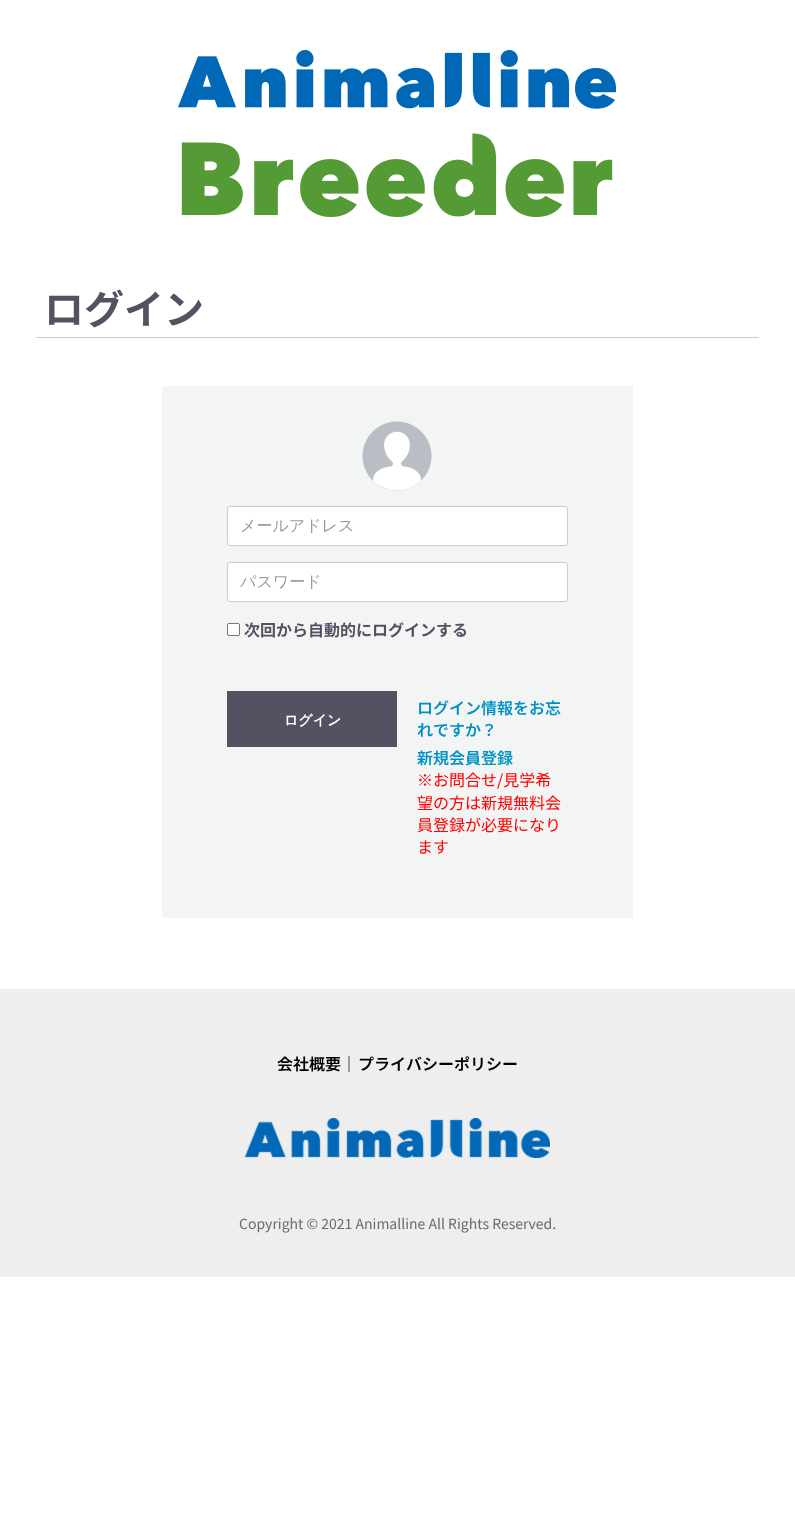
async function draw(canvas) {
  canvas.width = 795;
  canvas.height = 1515;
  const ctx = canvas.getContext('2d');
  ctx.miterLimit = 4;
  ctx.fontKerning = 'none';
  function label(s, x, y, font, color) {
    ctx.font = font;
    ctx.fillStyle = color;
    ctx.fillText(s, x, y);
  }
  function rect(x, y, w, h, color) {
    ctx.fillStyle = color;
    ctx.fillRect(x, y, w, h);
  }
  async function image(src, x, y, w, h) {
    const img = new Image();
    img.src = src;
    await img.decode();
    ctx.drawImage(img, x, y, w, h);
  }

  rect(0, 0, 795, 1515, '#fff');
  await image('assets/img1.png', 178, 50, 438, 167);
  rect(36, 337, 723, 1, '#ccc');
  label('ログイン', 44, 324, 'bold 40px Noto Sans JP', '#525263');
  rect(162, 386, 471, 532, '#f3f4f4');
  await image('assets/img2.png', 362, 421, 70, 70);
  ctx.fillStyle = '#fff';
  ctx.beginPath();
  ctx.roundRect(227.5, 506.5, 340, 39, 2.5);
  ctx.fill();
  ctx.strokeStyle = '#ccc';
  ctx.stroke();
  label('メールアドレス', 240, 531, '500 16px WenQuanYi Zen Hei', '#999');
  ctx.fillStyle = '#fff';
  ctx.beginPath();
  ctx.roundRect(227.5, 562.5, 340, 39, 2.5);
  ctx.fill();
  ctx.stroke();
  label('パスワード', 240, 587, '500 16px WenQuanYi Zen Hei', '#999');
  ctx.fillStyle = '#fff';
  ctx.beginPath();
  ctx.roundRect(227.5, 623.5, 12, 12, 1.5);
  ctx.fill();
  ctx.strokeStyle = '#767676';
  ctx.stroke();
  label('次回から自動的にログインする', 244, 636, 'bold 16px Noto Sans JP', '#525263');
  rect(227, 691, 170, 56, '#525263');
  label('ログイン', 284, 725, 'bold 14px WenQuanYi Zen Hei', '#fff');
  label('ログイン情報をお忘', 417, 714, '600 16px Noto Sans JP', '#0092c4');
  label('れですか？', 417, 736, '600 16px Noto Sans JP', '#0092c4');
  label('新規会員登録', 417, 764, '600 16px Noto Sans JP', '#0092c4');
  label('※お問合せ/見学希', 417, 786, '16px Noto Sans JP', '#f00');
  label('望の方は新規無料会', 417, 809, '16px Noto Sans JP', '#f00');
  label('員登録が必要になり', 417, 831, '16px Noto Sans JP', '#f00');
  label('ます', 417, 853, '16px Noto Sans JP', '#f00');
  rect(0, 989, 795, 288, '#eee');
  label('会社概要', 277, 1070, '600 16px Noto Sans JP', '#000');
  label('｜', 341, 1070, '16px Noto Sans JP', '#000');
  label('プライバシーポリシー', 358, 1070, '600 16px Noto Sans JP', '#000');
  await image('assets/img3.png', 245, 1118, 305, 40);
  label('Copyright © 2021 Animalline All Rights Reserved.', 239, 1229, '14px Noto Sans JP', '#6a6a6a');
}

draw(document.querySelector('canvas'));
